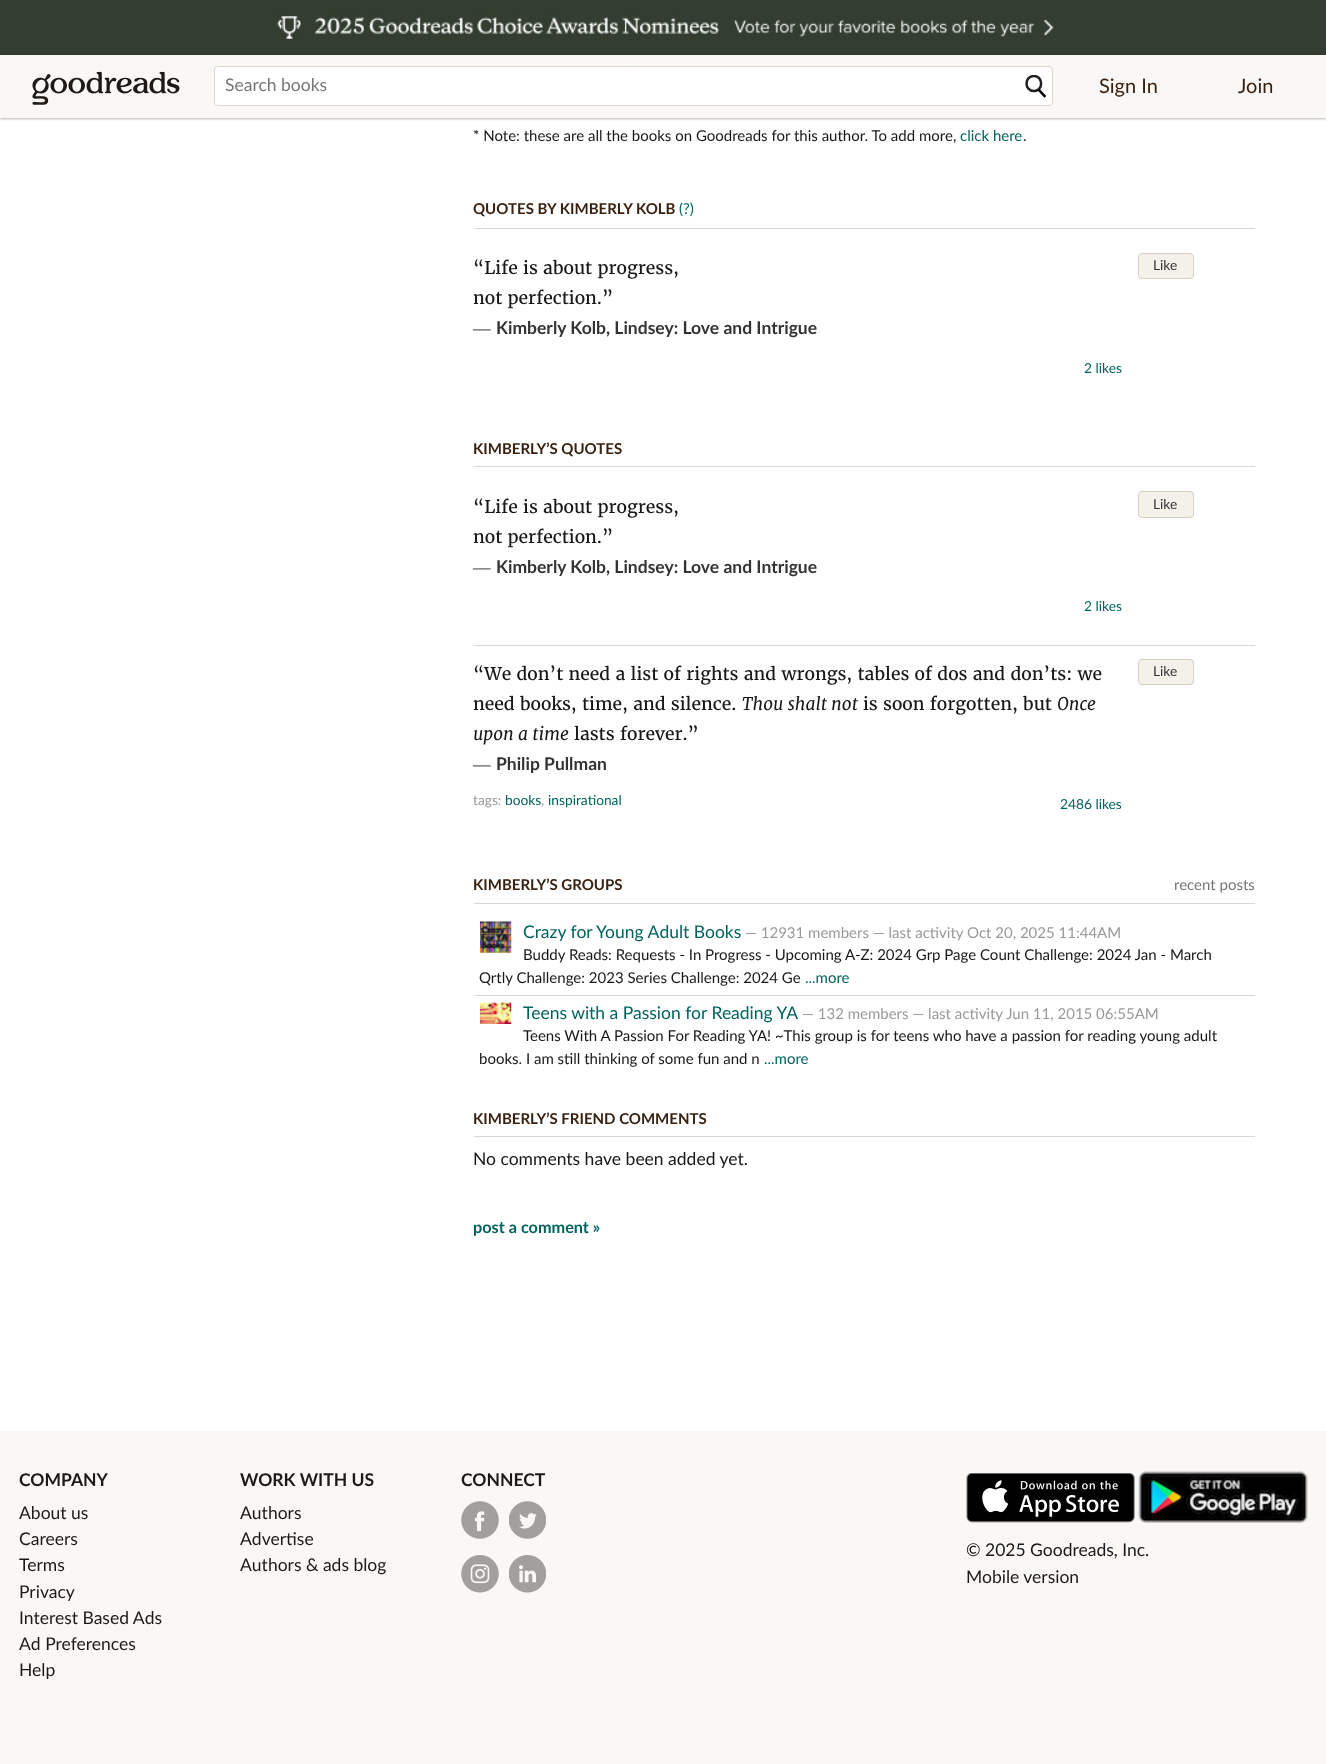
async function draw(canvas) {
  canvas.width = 1326;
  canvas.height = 1764;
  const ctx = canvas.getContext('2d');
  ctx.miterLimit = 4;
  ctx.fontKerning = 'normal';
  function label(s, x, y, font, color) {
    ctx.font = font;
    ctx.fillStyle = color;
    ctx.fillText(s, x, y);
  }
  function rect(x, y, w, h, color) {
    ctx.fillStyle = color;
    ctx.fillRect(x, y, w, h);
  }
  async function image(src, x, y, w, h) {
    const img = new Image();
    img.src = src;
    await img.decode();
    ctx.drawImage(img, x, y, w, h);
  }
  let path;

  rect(0, 0, 1326, 1764, '#fff');
  rect(0, 0, 1326, 55, '#333d30');
  await image('assets/img1.png', 274, 10, 780, 30);
  ctx.fillStyle = '#00000026';
  ctx.filter = 'blur(1px)';
  ctx.beginPath();
  ctx.rect(0, 56, 1326, 63);
  ctx.fill();
  ctx.filter = 'none';
  ctx.filter = 'blur(1px)';
  ctx.beginPath();
  ctx.rect(0, 56, 1326, 63);
  ctx.fill();
  ctx.filter = 'none';
  rect(0, 55, 1326, 63, '#faf8f6');
  await image('assets/img2.png', 32, 71, 148, 34);
  ctx.fillStyle = '#fff';
  ctx.beginPath();
  ctx.roundRect(214.5, 66.5, 838, 39, 3.5);
  ctx.fill();
  ctx.strokeStyle = '#dcd6cc';
  ctx.stroke();
  label('Search books', 225, 91, '17.5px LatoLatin', '#767676');
  ctx.save();
  ctx.beginPath();
  ctx.rect(1025, 75, 23, 24);
  ctx.clip();
  path = new Path2D('M1034 91C1043.5 91 1043.5 76 1034 76C1024 76 1024 91 1034 91Z');
  ctx.strokeStyle = '#202020';
  ctx.lineWidth = 2.5;
  ctx.stroke(path);
  ctx.restore();
  path = new Path2D('M1039.5 90.5L1044.5 96');
  ctx.strokeStyle = '#000';
  ctx.lineWidth = 2.5;
  ctx.lineCap = 'square';
  ctx.stroke(path);
  label('Sign In', 1099, 93, '20px LatoLatin', '#382110');
  label('Join', 1238, 93, '20px LatoLatin', '#382110');
  label('* Note: these are all the books on Goodreads for this author. To add more,', 473, 141, '15px LatoLatin', '#181818');
  label('click here', 960, 141, '15px LatoLatin', '#00635d');
  label('.', 1023, 141, '15px LatoLatin', '#181818');
  label('QUOTES BY KIMBERLY KOLB', 473, 214, 'bold 15px LatoLatin', '#382110');
  label('(?)', 679, 214, '15px LatoLatin', '#00635d');
  rect(474, 228, 781, 1, '#d8d8d8');
  label('“Life is about progress,', 473, 274, '17.5px Merriweather', '#181818');
  label('not perfection.”', 473, 304, '17.5px Merriweather', '#181818');
  label('―', 473, 334, '17.5px Liberation Serif', '#181818');
  label('Kimberly Kolb, Lindsey: Love and Intrigue', 496, 334, 'bold 17.5px LatoLatin', '#333');
  label('2 likes', 1084, 373, '13.75px LatoLatin', '#00635d');
  ctx.fillStyle = '#f4f1ea';
  ctx.beginPath();
  ctx.roundRect(1138.5, 253.5, 55, 25, 3.5);
  ctx.fill();
  ctx.strokeStyle = '#d6d0c4';
  ctx.lineWidth = 1;
  ctx.stroke();
  label('Like', 1153, 270, '13.75px LatoLatin', '#333');
  rect(474, 466, 781, 1, '#d8d8d8');
  label('KIMBERLY’S QUOTES', 473, 454, 'bold 15px LatoLatin', '#382110');
  rect(474, 645, 781, 1, '#d7d7d7');
  label('“Life is about progress,', 473, 513, '17.5px Merriweather', '#181818');
  label('not perfection.”', 473, 543, '17.5px Merriweather', '#181818');
  label('―', 473, 573, '17.5px Liberation Serif', '#181818');
  label('Kimberly Kolb, Lindsey: Love and Intrigue', 496, 573, 'bold 17.5px LatoLatin', '#333');
  label('2 likes', 1084, 611, '13.75px LatoLatin', '#00635d');
  ctx.fillStyle = '#f4f1ea';
  ctx.beginPath();
  ctx.roundRect(1138.5, 491.5, 55, 26, 3.5);
  ctx.fill();
  ctx.stroke();
  label('Like', 1153, 509, '13.75px LatoLatin', '#333');
  label('“We don’t need a list of rights and wrongs, tables of dos and don’ts: we', 473, 680, '17.5px Merriweather', '#181818');
  label('need books, time, and silence.', 473, 710, '17.5px Merriweather', '#181818');
  label('Thou shalt not', 742, 710, 'italic 17.5px Merriweather', '#181818');
  label('is soon forgotten, but', 863, 710, '17.5px Merriweather', '#181818');
  label('Once', 1057, 710, 'italic 17.5px Merriweather', '#181818');
  label('upon a time', 473, 740, 'italic 17.5px Merriweather', '#181818');
  label('lasts forever.”', 574, 740, '17.5px Merriweather', '#181818');
  label('―', 473, 770, '17.5px Liberation Serif', '#181818');
  label('Philip Pullman', 496, 770, 'bold 17.5px LatoLatin', '#333');
  label('tags:', 473, 805, '13.75px LatoLatin', '#999');
  label('books', 505, 805, '13.75px LatoLatin', '#00635d');
  label(',', 541, 805, '13.75px LatoLatin', '#999');
  label('inspirational', 548, 805, '13.75px LatoLatin', '#00635d');
  label('2486 likes', 1060, 809, '13.75px LatoLatin', '#00635d');
  ctx.fillStyle = '#f4f1ea';
  ctx.beginPath();
  ctx.roundRect(1138.5, 659.5, 55, 25, 3.5);
  ctx.fill();
  ctx.stroke();
  label('Like', 1153, 676, '13.75px LatoLatin', '#333');
  rect(474, 903, 781, 1, '#d8d8d8');
  label('KIMBERLY’S GROUPS', 473, 890, 'bold 15px LatoLatin', '#382110');
  label('recent posts', 1174, 890, '15px LatoLatin', '#767676');
  rect(474, 995, 781, 1, '#d7d7d7');
  await image('assets/img3.png', 480, 921, 32, 32);
  label('Crazy for Young Adult Books', 523, 938, '17.5px LatoLatin', '#00635d');
  label('— 12931 members — last activity Oct 20, 2025 11:44AM', 745, 938, '15px LatoLatin', '#999');
  label('Buddy Reads: Requests - In Progress - Upcoming A-Z: 2024 Grp Page Count Challenge: 2024 Jan - March', 523, 960, '15px LatoLatin', '#181818');
  label('Qrtly Challenge: 2023 Series Challenge: 2024 Ge', 479, 983, '15px LatoLatin', '#181818');
  label('...more', 805, 983, '15px LatoLatin', '#00635d');
  await image('assets/img4.png', 480, 1002, 32, 22);
  label('Teens with a Passion for Reading YA', 523, 1019, '17.5px LatoLatin', '#00635d');
  label('— 132 members — last activity Jun 11, 2015 06:55AM', 802, 1019, '15px LatoLatin', '#999');
  label('Teens With A Passion For Reading YA! ~This group is for teens who have a passion for reading young adult', 523, 1041, '15px LatoLatin', '#181818');
  label('books. I am still thinking of some fun and n', 479, 1064, '15px LatoLatin', '#181818');
  label('...more', 764, 1064, '15px LatoLatin', '#00635d');
  rect(474, 1136, 781, 1, '#d8d8d8');
  label('KIMBERLY’S FRIEND COMMENTS', 473, 1124, 'bold 15px LatoLatin', '#382110');
  label('No comments have been added yet.', 473, 1165, '17.5px LatoLatin', '#181818');
  label('post a comment »', 473, 1233, 'bold 16.25px LatoLatin', '#00635d');
  rect(0, 1431, 1326, 333, '#faf8f6');
  label('COMPANY', 19, 1486, 'bold 17.5px LatoLatin', '#1e1915');
  label('About us', 19, 1519, '17.5px LatoLatin', '#1e1915');
  label('Careers', 19, 1545, '17.5px LatoLatin', '#1e1915');
  label('Terms', 19, 1571, '17.5px LatoLatin', '#1e1915');
  label('Privacy', 19, 1598, '17.5px LatoLatin', '#1e1915');
  label('Interest Based Ads', 19, 1624, '17.5px LatoLatin', '#1e1915');
  label('Ad Preferences', 19, 1650, '17.5px LatoLatin', '#1e1915');
  label('Help', 19, 1676, '17.5px LatoLatin', '#1e1915');
  label('WORK WITH US', 240, 1486, 'bold 17.5px LatoLatin', '#1e1915');
  label('Authors', 240, 1519, '17.5px LatoLatin', '#1e1915');
  label('Advertise', 240, 1545, '17.5px LatoLatin', '#1e1915');
  label('Authors & ads blog', 240, 1571, '17.5px LatoLatin', '#1e1915');
  label('CONNECT', 461, 1486, 'bold 17.5px LatoLatin', '#1e1915');
  await image('assets/img5.png', 461, 1501, 38, 38);
  await image('assets/img6.png', 509, 1501, 37, 38);
  await image('assets/img7.png', 461, 1555, 38, 38);
  await image('assets/img8.png', 509, 1555, 37, 38);
  await image('assets/img9.png', 966, 1473, 169, 50);
  await image('assets/img10.png', 1138, 1471, 170, 52);
  label('© 2025 Goodreads, Inc.', 966, 1556, '17.5px LatoLatin', '#181818');
  label('Mobile version', 966, 1583, '17.5px LatoLatin', '#1e1915');
}

draw(document.querySelector('canvas'));
